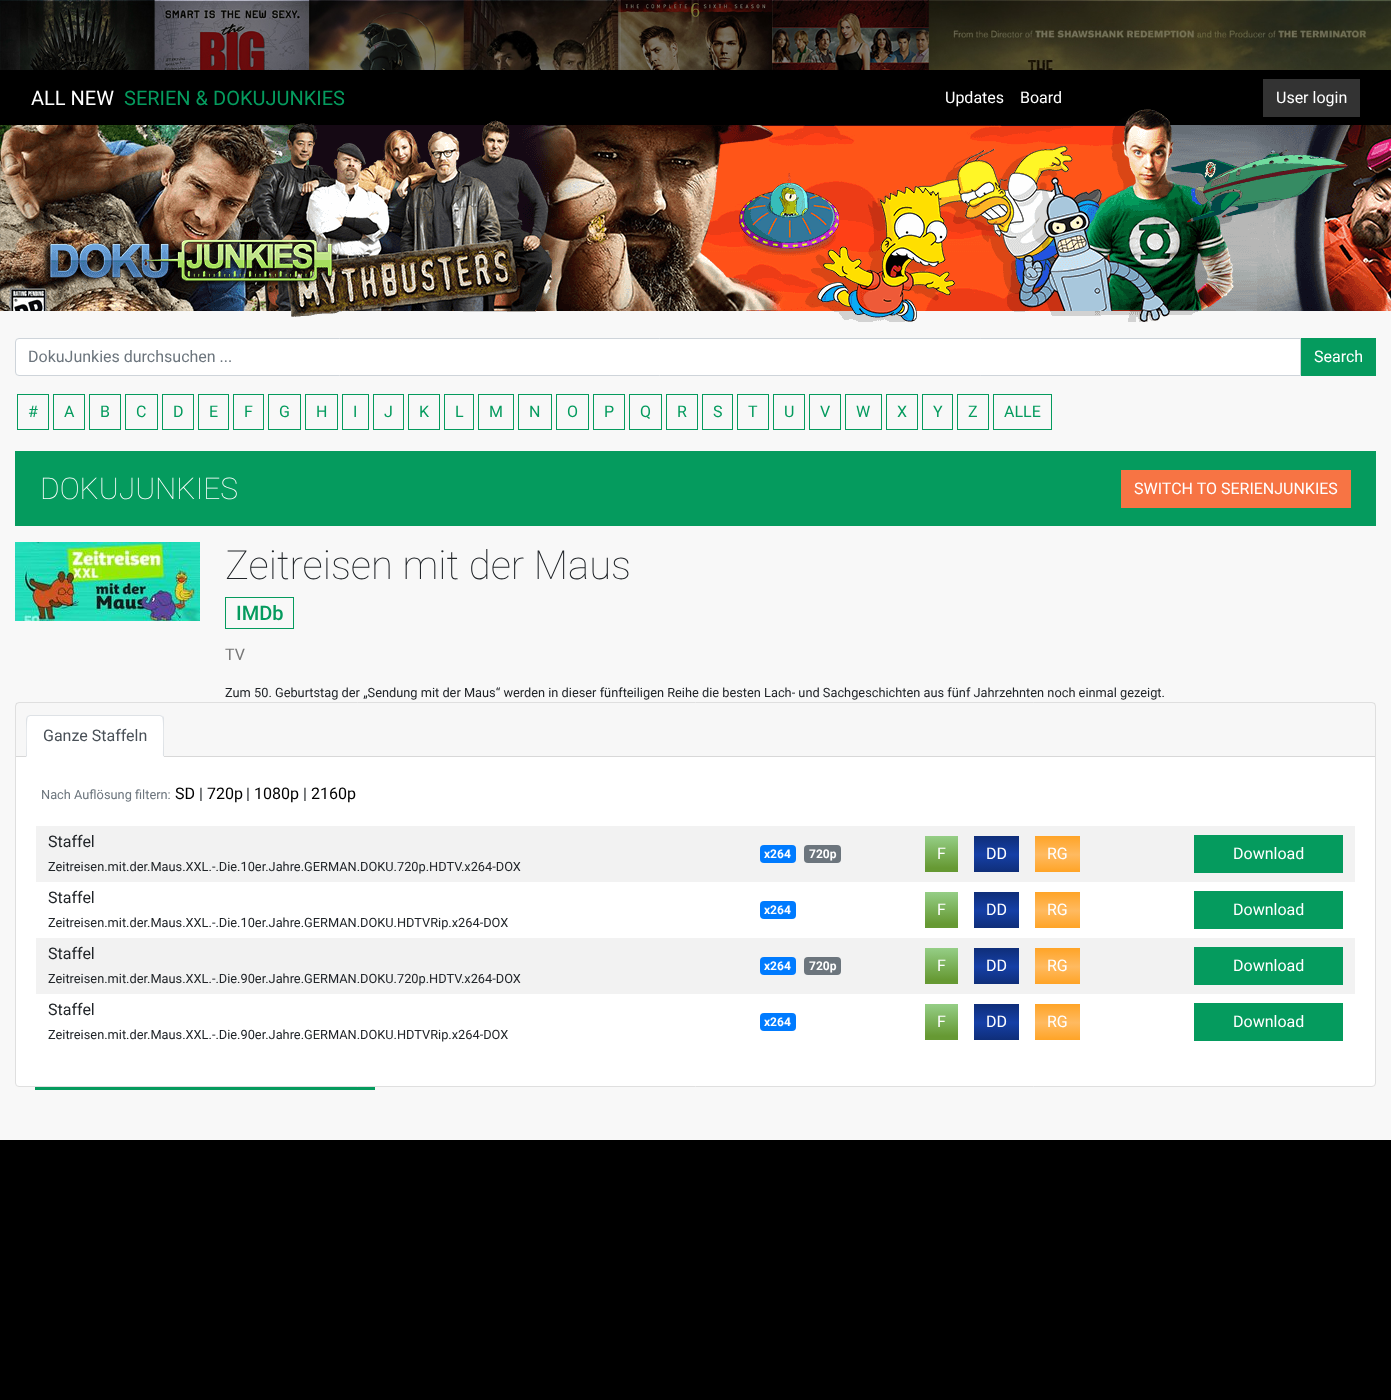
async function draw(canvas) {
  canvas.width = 1391;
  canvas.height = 1400;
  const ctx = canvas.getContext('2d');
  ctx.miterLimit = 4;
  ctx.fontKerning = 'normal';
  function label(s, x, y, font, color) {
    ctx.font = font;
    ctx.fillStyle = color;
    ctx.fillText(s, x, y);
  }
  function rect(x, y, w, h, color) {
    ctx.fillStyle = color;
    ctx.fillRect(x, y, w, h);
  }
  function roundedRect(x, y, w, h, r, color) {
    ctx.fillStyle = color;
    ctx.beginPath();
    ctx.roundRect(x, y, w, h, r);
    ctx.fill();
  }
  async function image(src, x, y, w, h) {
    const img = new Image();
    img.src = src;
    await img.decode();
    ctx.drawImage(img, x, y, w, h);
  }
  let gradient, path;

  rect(0, 0, 1391, 1400, '#000');
  await image('assets/img1.png', 0, 0, 1391, 70);
  rect(0, 311, 1391, 829, '#f8f8f8');
  label('ALL NEW', 31, 105, '20px Roboto', '#fff');
  label('SERIEN & DOKUJUNKIES', 124, 105, '20px Roboto', '#059b5e');
  label('Updates', 945, 103, '16px Roboto', '#fff');
  label('Board', 1020, 103, '16px Roboto', '#fff');
  rect(1263, 79, 97, 38, '#333');
  label('User login', 1276, 103, '16px Roboto', '#fff');
  await image('assets/img2.png', 0, 109, 1391, 213);
  ctx.beginPath();
  ctx.roundRect(15.5, 338.5, 1285, 37, [3.5, 0, 0, 3.5]);
  ctx.fill();
  ctx.strokeStyle = '#ced4da';
  ctx.stroke();
  label('DokuJunkies durchsuchen ...', 28, 362, '16px Roboto', '#6c757d');
  rect(1301, 338, 75, 38, '#059b5e');
  label('Search', 1314, 362, '16px Roboto', '#fff');
  ctx.strokeStyle = '#059b5e';
  ctx.strokeRect(17.5, 394.5, 31, 35);
  label('#', 28, 417, '16px Roboto', '#059b5e');
  ctx.strokeRect(53.5, 394.5, 31, 35);
  label('A', 64, 417, '16px Roboto', '#059b5e');
  ctx.strokeRect(89.5, 394.5, 31, 35);
  label('B', 100, 417, '16px Roboto', '#059b5e');
  ctx.strokeRect(125.5, 394.5, 32, 35);
  label('C', 136, 417, '16px Roboto', '#059b5e');
  ctx.strokeRect(162.5, 394.5, 31, 35);
  label('D', 173, 417, '16px Roboto', '#059b5e');
  ctx.strokeRect(198.5, 394.5, 30, 35);
  label('E', 209, 417, '16px Roboto', '#059b5e');
  ctx.strokeRect(233.5, 394.5, 30, 35);
  label('F', 244, 417, '16px Roboto', '#059b5e');
  ctx.strokeRect(268.5, 394.5, 32, 35);
  label('G', 279, 417, '16px Roboto', '#059b5e');
  ctx.strokeRect(305.5, 394.5, 32, 35);
  label('H', 316, 417, '16px Roboto', '#059b5e');
  ctx.strokeRect(342.5, 394.5, 26, 35);
  label('I', 353, 417, '16px Roboto', '#059b5e');
  ctx.strokeRect(373.5, 394.5, 30, 35);
  label('J', 384, 417, '16px Roboto', '#059b5e');
  ctx.strokeRect(408.5, 394.5, 31, 35);
  label('K', 419, 417, '16px Roboto', '#059b5e');
  ctx.strokeRect(444.5, 394.5, 29, 35);
  label('L', 455, 417, '16px Roboto', '#059b5e');
  ctx.strokeRect(478.5, 394.5, 35, 35);
  label('M', 489, 417, '16px Roboto', '#059b5e');
  ctx.strokeRect(518.5, 394.5, 33, 35);
  label('N', 529, 417, '16px Roboto', '#059b5e');
  ctx.strokeRect(556.5, 394.5, 32, 35);
  label('O', 567, 417, '16px Roboto', '#059b5e');
  ctx.strokeRect(593.5, 394.5, 31, 35);
  label('P', 604, 417, '16px Roboto', '#059b5e');
  ctx.strokeRect(629.5, 394.5, 32, 35);
  label('Q', 640, 417, '16px Roboto', '#059b5e');
  ctx.strokeRect(666.5, 394.5, 31, 35);
  label('R', 677, 417, '16px Roboto', '#059b5e');
  ctx.strokeRect(702.5, 394.5, 30, 35);
  label('S', 713, 417, '16px Roboto', '#059b5e');
  ctx.strokeRect(737.5, 394.5, 31, 35);
  label('T', 748, 417, '16px Roboto', '#059b5e');
  ctx.strokeRect(773.5, 394.5, 31, 35);
  label('U', 784, 417, '16px Roboto', '#059b5e');
  ctx.strokeRect(809.5, 394.5, 31, 35);
  label('V', 820, 417, '16px Roboto', '#059b5e');
  ctx.strokeRect(845.5, 394.5, 36, 35);
  label('W', 856, 417, '16px Roboto', '#059b5e');
  ctx.strokeRect(886.5, 394.5, 31, 35);
  label('X', 897, 417, '16px Roboto', '#059b5e');
  ctx.strokeRect(922.5, 394.5, 30, 35);
  label('Y', 933, 417, '16px Roboto', '#059b5e');
  ctx.strokeRect(957.5, 394.5, 31, 35);
  label('Z', 968, 417, '16px Roboto', '#059b5e');
  ctx.strokeRect(993.5, 394.5, 58, 35);
  label('ALLE', 1004, 417, '16px Roboto', '#059b5e');
  rect(15, 451, 1361, 75, '#059b5e');
  label('DOKUJUNKIES', 40, 499, '100 30px Roboto', '#fff');
  rect(1121, 470, 230, 38, '#f77444');
  label('SWITCH TO SERIENJUNKIES', 1134, 494, '16px Roboto', '#fff');
  await image('assets/img3.png', 15, 542, 185, 79);
  label('Zeitreisen mit der Maus', 225, 579, '100 40px Roboto', '#212529');
  ctx.strokeRect(225.5, 597.5, 68, 31);
  label('IMDb', 236, 620, '500 20px Roboto', '#059b5e');
  label('TV', 225, 660, '16px Roboto', '#777');
  label('Zum 50. Geburtstag der „Sendung mit der Maus“ werden in dieser fünfteiligen Reihe die besten Lach- und Sachgeschichten aus fünf Jahrzehnten noch einmal gezeigt.', 225, 697, '12.8px Roboto', '#212529');
  ctx.fillStyle = '#fff';
  ctx.beginPath();
  ctx.roundRect(15.5, 702.5, 1360, 384, 3.5);
  ctx.fill();
  ctx.strokeStyle = '#dfdfdf';
  ctx.stroke();
  rect(16, 703, 1359, 53, '#00000008');
  rect(16, 756, 1359, 1, '#d8d8d8');
  ctx.fillStyle = '#fff';
  ctx.beginPath();
  ctx.roundRect(26, 715, 138, 42, [4, 4, 0, 0]);
  ctx.fill();
  ctx.fillStyle = '#dee2e6';
  path = new Path2D('M30 715L27 716L28 717L30 716H160L162 717L163 716L160 715Z');
  ctx.fill(path);
  path = new Path2D('M164 757V719C164 718 164 717 163 716L162 717C164 719 163 751 163 756Z');
  ctx.fill(path);
  ctx.fillStyle = '#fff';
  path = new Path2D('M164 757L163 756H27L26 757Z');
  ctx.fill(path);
  ctx.fillStyle = '#dee2e6';
  path = new Path2D('M26 757L27 756C27 751 26 719 28 717L27 716L26 719Z');
  ctx.fill(path);
  label('Ganze Staffeln', 43, 741, '16px Roboto', '#495057');
  label('Nach Auflösung filtern:', 41, 799, '12.8px Roboto', '#6c757d');
  label('SD', 175, 799, '16px Roboto', '#000');
  label('|', 199, 799, '16px Roboto', '#212529');
  label('720p', 207, 799, '16px Roboto', '#000');
  label('|', 246, 799, '16px Roboto', '#212529');
  label('1080p', 254, 799, '16px Roboto', '#000');
  label('|', 303, 799, '16px Roboto', '#212529');
  label('2160p', 311, 799, '16px Roboto', '#000');
  rect(36, 826, 1319, 56, '#f2f2f2');
  label('Staffel', 48, 847, '16px Roboto', '#212529');
  label('Zeitreisen.mit.der.Maus.XXL.-.Die.10er.Jahre.GERMAN.DOKU.720p.HDTV.x264-DOX', 48, 871, '12.8px Roboto', '#212529');
  roundedRect(760, 845, 36, 18, 4, '#007bff');
  label('x264', 764, 858, 'bold 12px Roboto', '#fff');
  roundedRect(804, 845, 37, 18, 4, '#6c757d');
  label('720p', 809, 858, 'bold 12px Roboto', '#fff');
  gradient = ctx.createLinearGradient(942, 836, 942, 872);
  gradient.addColorStop(0, '#95ce86');
  gradient.addColorStop(0.89, '#693');
  ctx.fillStyle = gradient;
  ctx.fillRect(925, 836, 33, 36);
  label('F', 937, 859, '16px Roboto', '#fff');
  gradient = ctx.createLinearGradient(997, 836, 997, 872);
  gradient.addColorStop(0, '#0f2e79');
  gradient.addColorStop(0.52, '#153fa6');
  gradient.addColorStop(1, '#0f2e79');
  ctx.fillStyle = gradient;
  ctx.fillRect(974, 836, 45, 36);
  label('DD', 986, 859, '16px Roboto', '#fff');
  gradient = ctx.createLinearGradient(1058, 836, 1058, 872);
  gradient.addColorStop(0, '#ffa427');
  gradient.addColorStop(0.52, '#ffba60');
  gradient.addColorStop(1, '#ffa427');
  ctx.fillStyle = gradient;
  ctx.fillRect(1035, 836, 45, 36);
  label('RG', 1047, 859, '16px Roboto', '#fff');
  rect(1194, 835, 149, 38, '#059b5e');
  label('Download', 1233, 859, '16px Roboto', '#fff');
  label('Staffel', 48, 903, '16px Roboto', '#212529');
  label('Zeitreisen.mit.der.Maus.XXL.-.Die.10er.Jahre.GERMAN.DOKU.HDTVRip.x264-DOX', 48, 927, '12.8px Roboto', '#212529');
  roundedRect(760, 901, 36, 18, 4, '#007bff');
  label('x264', 764, 914, 'bold 12px Roboto', '#fff');
  gradient = ctx.createLinearGradient(942, 892, 942, 928);
  gradient.addColorStop(0, '#95ce86');
  gradient.addColorStop(0.89, '#693');
  ctx.fillStyle = gradient;
  ctx.fillRect(925, 892, 33, 36);
  label('F', 937, 915, '16px Roboto', '#fff');
  gradient = ctx.createLinearGradient(997, 892, 997, 928);
  gradient.addColorStop(0, '#0f2e79');
  gradient.addColorStop(0.52, '#153fa6');
  gradient.addColorStop(1, '#0f2e79');
  ctx.fillStyle = gradient;
  ctx.fillRect(974, 892, 45, 36);
  label('DD', 986, 915, '16px Roboto', '#fff');
  gradient = ctx.createLinearGradient(1058, 892, 1058, 928);
  gradient.addColorStop(0, '#ffa427');
  gradient.addColorStop(0.52, '#ffba60');
  gradient.addColorStop(1, '#ffa427');
  ctx.fillStyle = gradient;
  ctx.fillRect(1035, 892, 45, 36);
  label('RG', 1047, 915, '16px Roboto', '#fff');
  rect(1194, 891, 149, 38, '#059b5e');
  label('Download', 1233, 915, '16px Roboto', '#fff');
  rect(36, 938, 1319, 56, '#f2f2f2');
  label('Staffel', 48, 959, '16px Roboto', '#212529');
  label('Zeitreisen.mit.der.Maus.XXL.-.Die.90er.Jahre.GERMAN.DOKU.720p.HDTV.x264-DOX', 48, 983, '12.8px Roboto', '#212529');
  roundedRect(760, 957, 36, 18, 4, '#007bff');
  label('x264', 764, 970, 'bold 12px Roboto', '#fff');
  roundedRect(804, 957, 37, 18, 4, '#6c757d');
  label('720p', 809, 970, 'bold 12px Roboto', '#fff');
  gradient = ctx.createLinearGradient(942, 948, 942, 984);
  gradient.addColorStop(0, '#95ce86');
  gradient.addColorStop(0.89, '#693');
  ctx.fillStyle = gradient;
  ctx.fillRect(925, 948, 33, 36);
  label('F', 937, 971, '16px Roboto', '#fff');
  gradient = ctx.createLinearGradient(997, 948, 997, 984);
  gradient.addColorStop(0, '#0f2e79');
  gradient.addColorStop(0.52, '#153fa6');
  gradient.addColorStop(1, '#0f2e79');
  ctx.fillStyle = gradient;
  ctx.fillRect(974, 948, 45, 36);
  label('DD', 986, 971, '16px Roboto', '#fff');
  gradient = ctx.createLinearGradient(1058, 948, 1058, 984);
  gradient.addColorStop(0, '#ffa427');
  gradient.addColorStop(0.52, '#ffba60');
  gradient.addColorStop(1, '#ffa427');
  ctx.fillStyle = gradient;
  ctx.fillRect(1035, 948, 45, 36);
  label('RG', 1047, 971, '16px Roboto', '#fff');
  rect(1194, 947, 149, 38, '#059b5e');
  label('Download', 1233, 971, '16px Roboto', '#fff');
  label('Staffel', 48, 1015, '16px Roboto', '#212529');
  label('Zeitreisen.mit.der.Maus.XXL.-.Die.90er.Jahre.GERMAN.DOKU.HDTVRip.x264-DOX', 48, 1039, '12.8px Roboto', '#212529');
  roundedRect(760, 1013, 36, 18, 4, '#007bff');
  label('x264', 764, 1026, 'bold 12px Roboto', '#fff');
  gradient = ctx.createLinearGradient(942, 1004, 942, 1040);
  gradient.addColorStop(0, '#95ce86');
  gradient.addColorStop(0.89, '#693');
  ctx.fillStyle = gradient;
  ctx.fillRect(925, 1004, 33, 36);
  label('F', 937, 1027, '16px Roboto', '#fff');
  gradient = ctx.createLinearGradient(997, 1004, 997, 1040);
  gradient.addColorStop(0, '#0f2e79');
  gradient.addColorStop(0.52, '#153fa6');
  gradient.addColorStop(1, '#0f2e79');
  ctx.fillStyle = gradient;
  ctx.fillRect(974, 1004, 45, 36);
  label('DD', 986, 1027, '16px Roboto', '#fff');
  gradient = ctx.createLinearGradient(1058, 1004, 1058, 1040);
  gradient.addColorStop(0, '#ffa427');
  gradient.addColorStop(0.52, '#ffba60');
  gradient.addColorStop(1, '#ffa427');
  ctx.fillStyle = gradient;
  ctx.fillRect(1035, 1004, 45, 36);
  label('RG', 1047, 1027, '16px Roboto', '#fff');
  rect(1194, 1003, 149, 38, '#059b5e');
  label('Download', 1233, 1027, '16px Roboto', '#fff');
  rect(35, 1087, 340, 3, '#059b5e');
}

draw(document.querySelector('canvas'));
